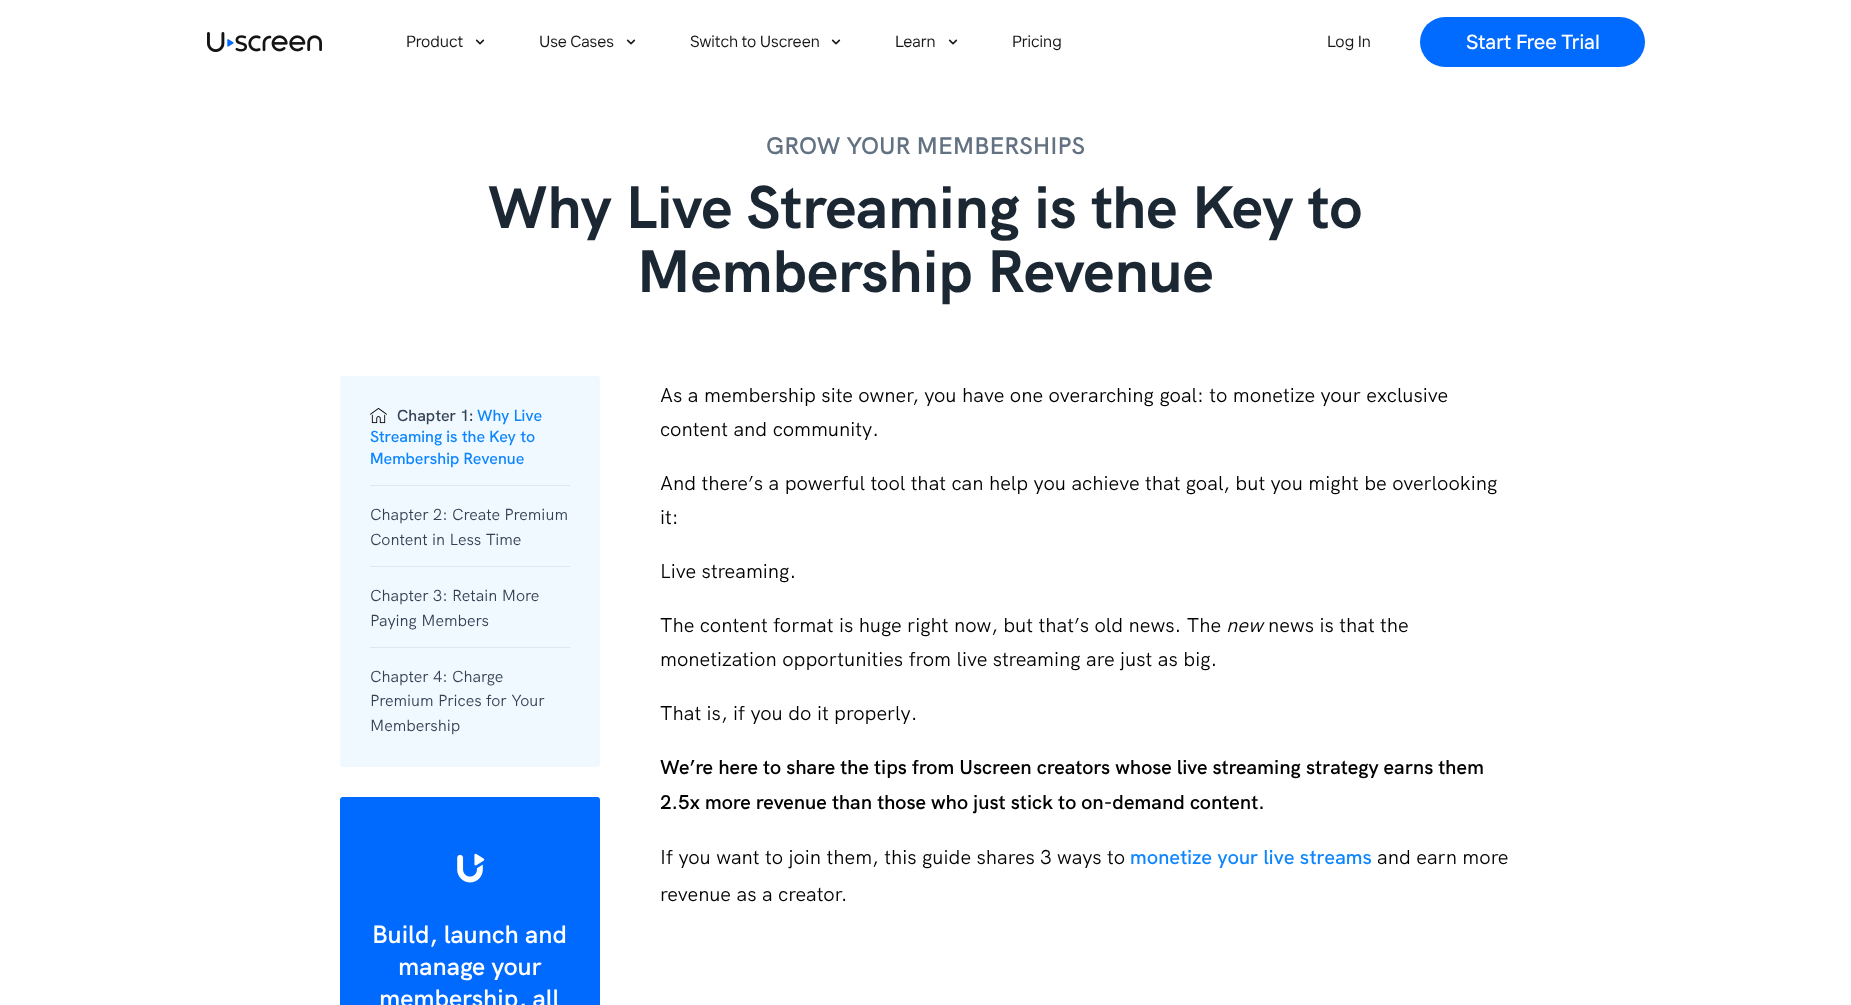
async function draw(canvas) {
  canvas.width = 1851;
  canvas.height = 1005;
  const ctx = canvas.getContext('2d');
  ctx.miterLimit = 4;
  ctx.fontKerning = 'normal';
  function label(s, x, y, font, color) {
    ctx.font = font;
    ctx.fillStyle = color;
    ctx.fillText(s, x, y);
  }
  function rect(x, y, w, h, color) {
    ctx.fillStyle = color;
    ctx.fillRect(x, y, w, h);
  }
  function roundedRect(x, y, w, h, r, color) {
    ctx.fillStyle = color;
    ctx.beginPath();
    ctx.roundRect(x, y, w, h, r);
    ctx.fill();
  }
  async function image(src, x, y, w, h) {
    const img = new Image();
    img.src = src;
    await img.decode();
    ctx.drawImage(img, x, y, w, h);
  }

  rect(0, 0, 1851, 1005, '#fff');
  await image('assets/img1.png', 207, 32, 115, 20);
  label('Product', 406, 47, '16.25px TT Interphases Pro', '#18181b');
  await image('assets/img2.png', 475, 39, 10, 6);
  label('Use Cases', 539, 47, '16.25px TT Interphases Pro', '#18181b');
  await image('assets/img2.png', 626, 39, 10, 6);
  label('Switch to Uscreen', 690, 47, '16.25px TT Interphases Pro', '#18181b');
  await image('assets/img2.png', 831, 39, 10, 6);
  label('Learn', 895, 47, '16.25px TT Interphases Pro', '#18181b');
  await image('assets/img2.png', 948, 39, 10, 6);
  label('Pricing', 1012, 47, '16.25px TT Interphases Pro', '#18181b');
  label('Log In', 1327, 47, '16.25px TT Interphases Pro', '#18181b');
  roundedRect(1420, 17, 225, 50, 25, '#016aff');
  label('Start Free Trial', 1466, 49, '500 20.5px TT Interphases Pro', '#fff');
  label('GROW YOUR MEMBERSHIPS', 766, 154, '600 24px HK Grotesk', '#637282');
  label('Why Live Streaming is the Key to', 488, 228, 'bold 60px HK Grotesk', '#1b2733');
  label('Membership Revenue', 637, 292, 'bold 60px HK Grotesk', '#1b2733');
  roundedRect(340, 376, 260, 391, 3, '#f0f9ff');
  rect(370, 485, 200, 1, '#dde8ef');
  await image('assets/img3.png', 370, 408, 17, 16);
  label('Chapter 1:', 397, 421, '500 16px HK Grotesk', '#344154');
  label('Why Live', 477, 421, '500 16px HK Grotesk', '#0c85ff');
  label('Streaming is the Key to', 370, 442, '500 16px HK Grotesk', '#0c85ff');
  label('Membership Revenue', 370, 464, '500 16px HK Grotesk', '#0c85ff');
  rect(370, 566, 200, 1, '#dde8ef');
  label('Chapter 2: Create Premium', 370, 520, '16px HK Grotesk', '#344154');
  label('Content in Less Time', 370, 545, '16px HK Grotesk', '#344154');
  rect(370, 647, 200, 1, '#dde8ef');
  label('Chapter 3: Retain More', 370, 601, '16px HK Grotesk', '#344154');
  label('Paying Members', 370, 626, '16px HK Grotesk', '#344154');
  label('Chapter 4: Charge', 370, 682, '16px HK Grotesk', '#344154');
  label('Premium Prices for Your', 370, 706, '16px HK Grotesk', '#344154');
  label('Membership', 370, 731, '16px HK Grotesk', '#344154');
  roundedRect(340, 797, 260, 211, 3, '#006aff');
  await image('assets/img4.png', 457, 853, 28, 30);
  label('Build, launch and', 372, 943, '600 25px HK Grotesk', '#fff');
  label('manage your', 398, 975, '600 25px HK Grotesk', '#fff');
  label('membership, all', 379, 1007, '600 25px HK Grotesk', '#fff');
  label('As a membership site owner, you have one overarching goal: to monetize your exclusive', 660, 402, '20px HK Grotesk', '#000');
  label('content and community.', 660, 436, '20px HK Grotesk', '#000');
  label('And there’s a powerful tool that can help you achieve that goal, but you might be overlooking', 660, 490, '20px HK Grotesk', '#000');
  label('it:', 660, 524, '20px HK Grotesk', '#000');
  label('Live streaming.', 660, 578, '20px HK Grotesk', '#000');
  label('The content format is huge right now, but that’s old news. The', 660, 632, '20px HK Grotesk', '#000');
  label('new', 1226, 632, 'italic 20px HK Grotesk', '#000');
  label('news is that the', 1268, 632, '20px HK Grotesk', '#000');
  label('monetization opportunities from live streaming are just as big.', 660, 666, '20px HK Grotesk', '#000');
  label('That is, if you do it properly.', 660, 720, '20px HK Grotesk', '#000');
  label('We’re here to share the tips from Uscreen creators whose live streaming strategy earns them', 660, 774, '600 20px HK Grotesk', '#000');
  label('2.5x more revenue than those who just stick to on-demand content.', 660, 809, '600 20px HK Grotesk', '#000');
  label('If you want to join them, this guide shares 3 ways to', 660, 864, '20px HK Grotesk', '#000');
  label('monetize your live streams', 1130, 864, '500 20px HK Grotesk', '#0c85ff');
  label('and earn more', 1377, 864, '20px HK Grotesk', '#000');
  label('revenue as a creator.', 660, 901, '20px HK Grotesk', '#000');
}

draw(document.querySelector('canvas'));
